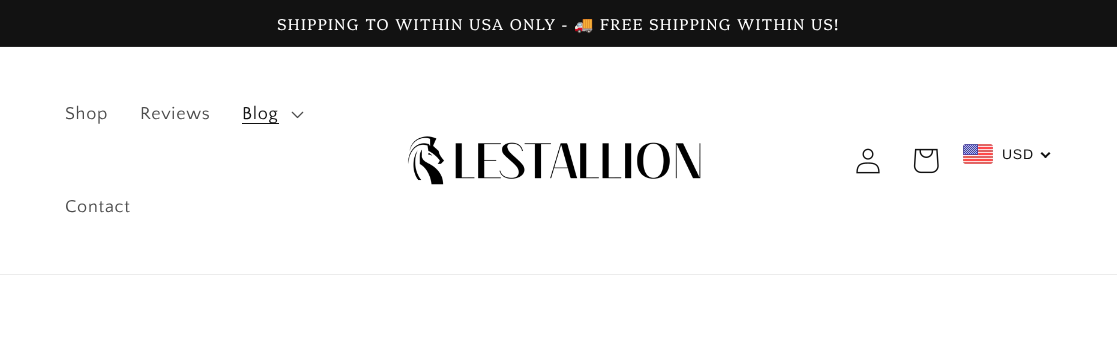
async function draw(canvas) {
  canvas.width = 1117;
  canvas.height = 346;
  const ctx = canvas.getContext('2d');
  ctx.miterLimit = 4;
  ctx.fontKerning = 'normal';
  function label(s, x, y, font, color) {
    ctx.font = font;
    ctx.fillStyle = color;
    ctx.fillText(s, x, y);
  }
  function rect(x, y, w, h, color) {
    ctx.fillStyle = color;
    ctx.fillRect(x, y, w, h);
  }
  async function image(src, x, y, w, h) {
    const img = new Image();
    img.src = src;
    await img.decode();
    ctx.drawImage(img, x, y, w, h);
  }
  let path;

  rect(0, 0, 1117, 346, '#fff');
  rect(0, 0, 1117, 46, '#121212');
  rect(0, 46, 1117, 1, '#252525');
  ctx.letterSpacing = '1.3px';
  label('SHIPPING TO WITHIN USA ONLY -', 277, 30, '300 15.6px Platypi', '#fff');
  label('🚚', 574, 30, '15.6px Noto Color Emoji', '#fff');
  label('FREE SHIPPING WITHIN US!', 600, 30, '300 15.6px Platypi', '#fff');
  rect(0, 274, 1117, 1, '#ececec');
  ctx.letterSpacing = '0.75px';
  label('Shop', 65, 119, '18px Quattrocento Sans', '#4d4d4d');
  label('Reviews', 140, 119, '18px Quattrocento Sans', '#4d4d4d');
  rect(242, 123, 37, 1, '#121212');
  label('Blog', 242, 119, '18px Quattrocento Sans', '#121212');
  await image('assets/img1.png', 291, 111, 13, 8);
  label('Contact', 65, 212, '18px Quattrocento Sans', '#4d4d4d');
  await image('assets/img2.png', 407, 136, 294, 49);
  await image('assets/img3.png', 856, 148, 24, 26);
  await image('assets/img4.png', 913, 148, 26, 26);
  await image('assets/img5.png', 963, 144, 30, 20);
  label('USD', 1002, 159, '14px Liberation Sans', '#121212');
  path = new Path2D('M1049 152L1050.5 153.5L1045.5 158L1044 157Z');
  ctx.fill(path);
  path = new Path2D('M1042 152L1047 157L1045.5 158L1040.5 153.5Z');
  ctx.fill(path);
}

draw(document.querySelector('canvas'));
